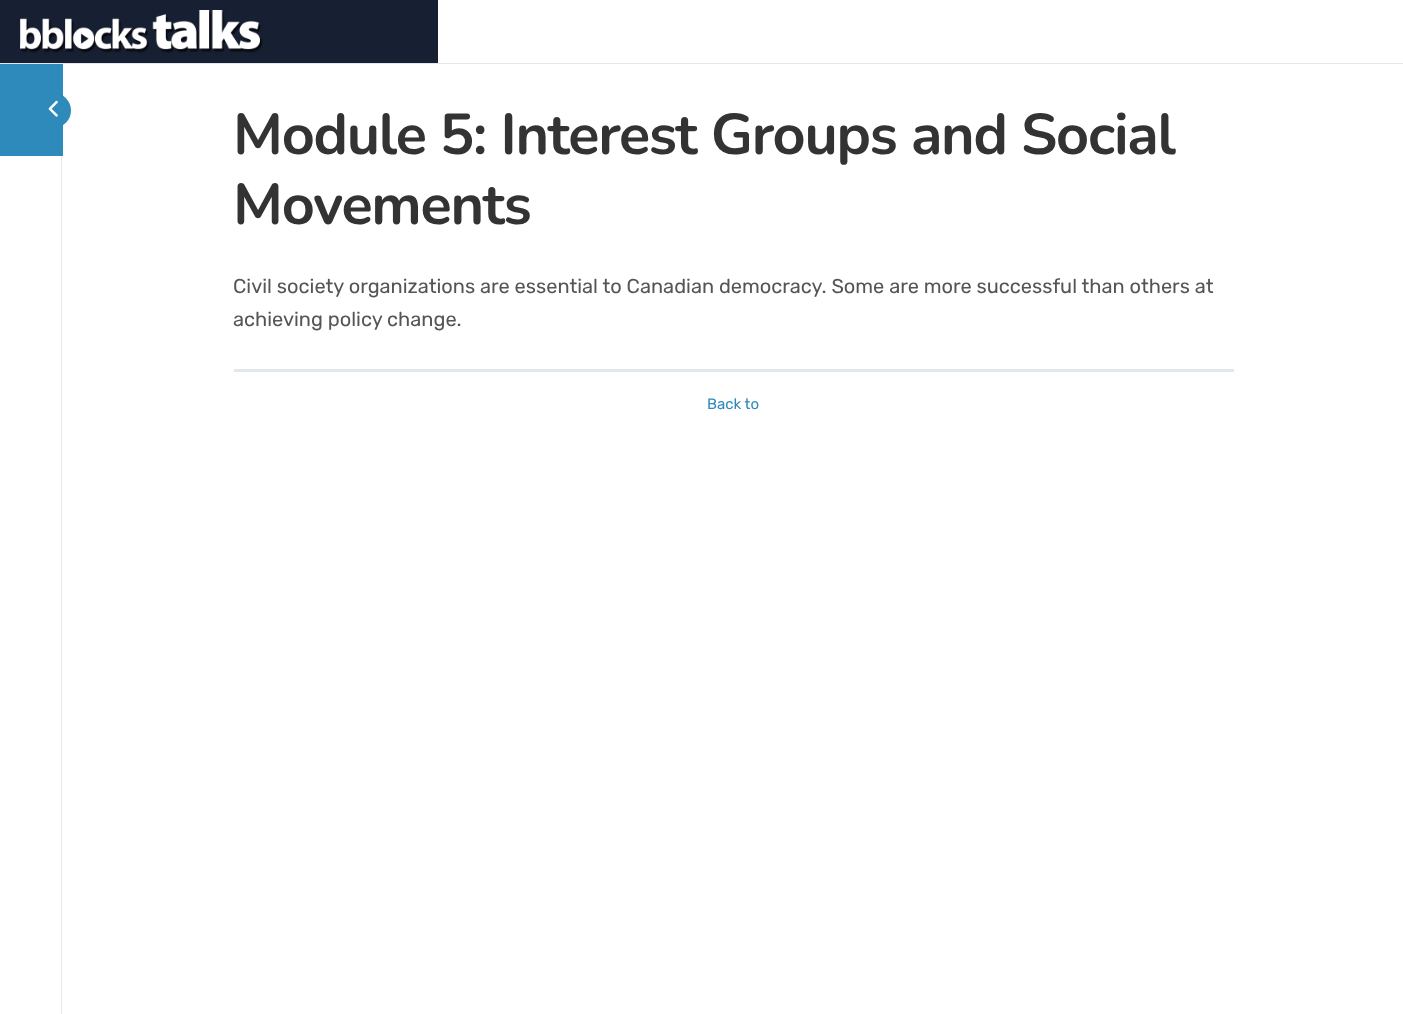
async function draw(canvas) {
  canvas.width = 1403;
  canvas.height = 1014;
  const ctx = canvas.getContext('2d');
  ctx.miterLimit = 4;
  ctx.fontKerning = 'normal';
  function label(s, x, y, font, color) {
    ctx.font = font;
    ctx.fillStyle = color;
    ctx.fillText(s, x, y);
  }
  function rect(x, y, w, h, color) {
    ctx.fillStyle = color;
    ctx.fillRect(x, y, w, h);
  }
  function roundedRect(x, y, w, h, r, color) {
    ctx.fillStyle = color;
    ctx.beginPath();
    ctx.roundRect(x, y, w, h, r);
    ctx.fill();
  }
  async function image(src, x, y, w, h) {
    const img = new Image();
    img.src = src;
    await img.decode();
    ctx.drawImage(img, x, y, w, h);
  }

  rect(0, 0, 1403, 1014, '#fff');
  rect(61, 156, 1, 858, '#e2e7ed');
  rect(0, 64, 63, 92, '#2d8abb');
  roundedRect(35, 93, 36, 35, 17.5, '#2d8abb');
  await image('assets/img1.png', 48, 100, 10, 17);
  rect(0, 63, 1403, 1, '#e2e7ed');
  rect(0, 0, 438, 63, '#171f32');
  await image('assets/img2.png', 20, 10, 243, 43);
  ctx.letterSpacing = '-1.25px';
  label('Module 5: Interest Groups and Social', 233, 154, 'bold 57.5px Nunito', '#333');
  label('Movements', 233, 224, 'bold 57.5px Nunito', '#333');
  ctx.letterSpacing = '0px';
  label('Civil society organizations are essential to Canadian democracy. Some are more successful than others at', 233, 293, '20px Rubik', '#555');
  label('achieving policy change.', 233, 326, '20px Rubik', '#555');
  rect(234, 369, 1000, 3, '#e2e7ed');
  label('Back to', 707, 409, '15px Rubik', '#2d8abb');
}

draw(document.querySelector('canvas'));
